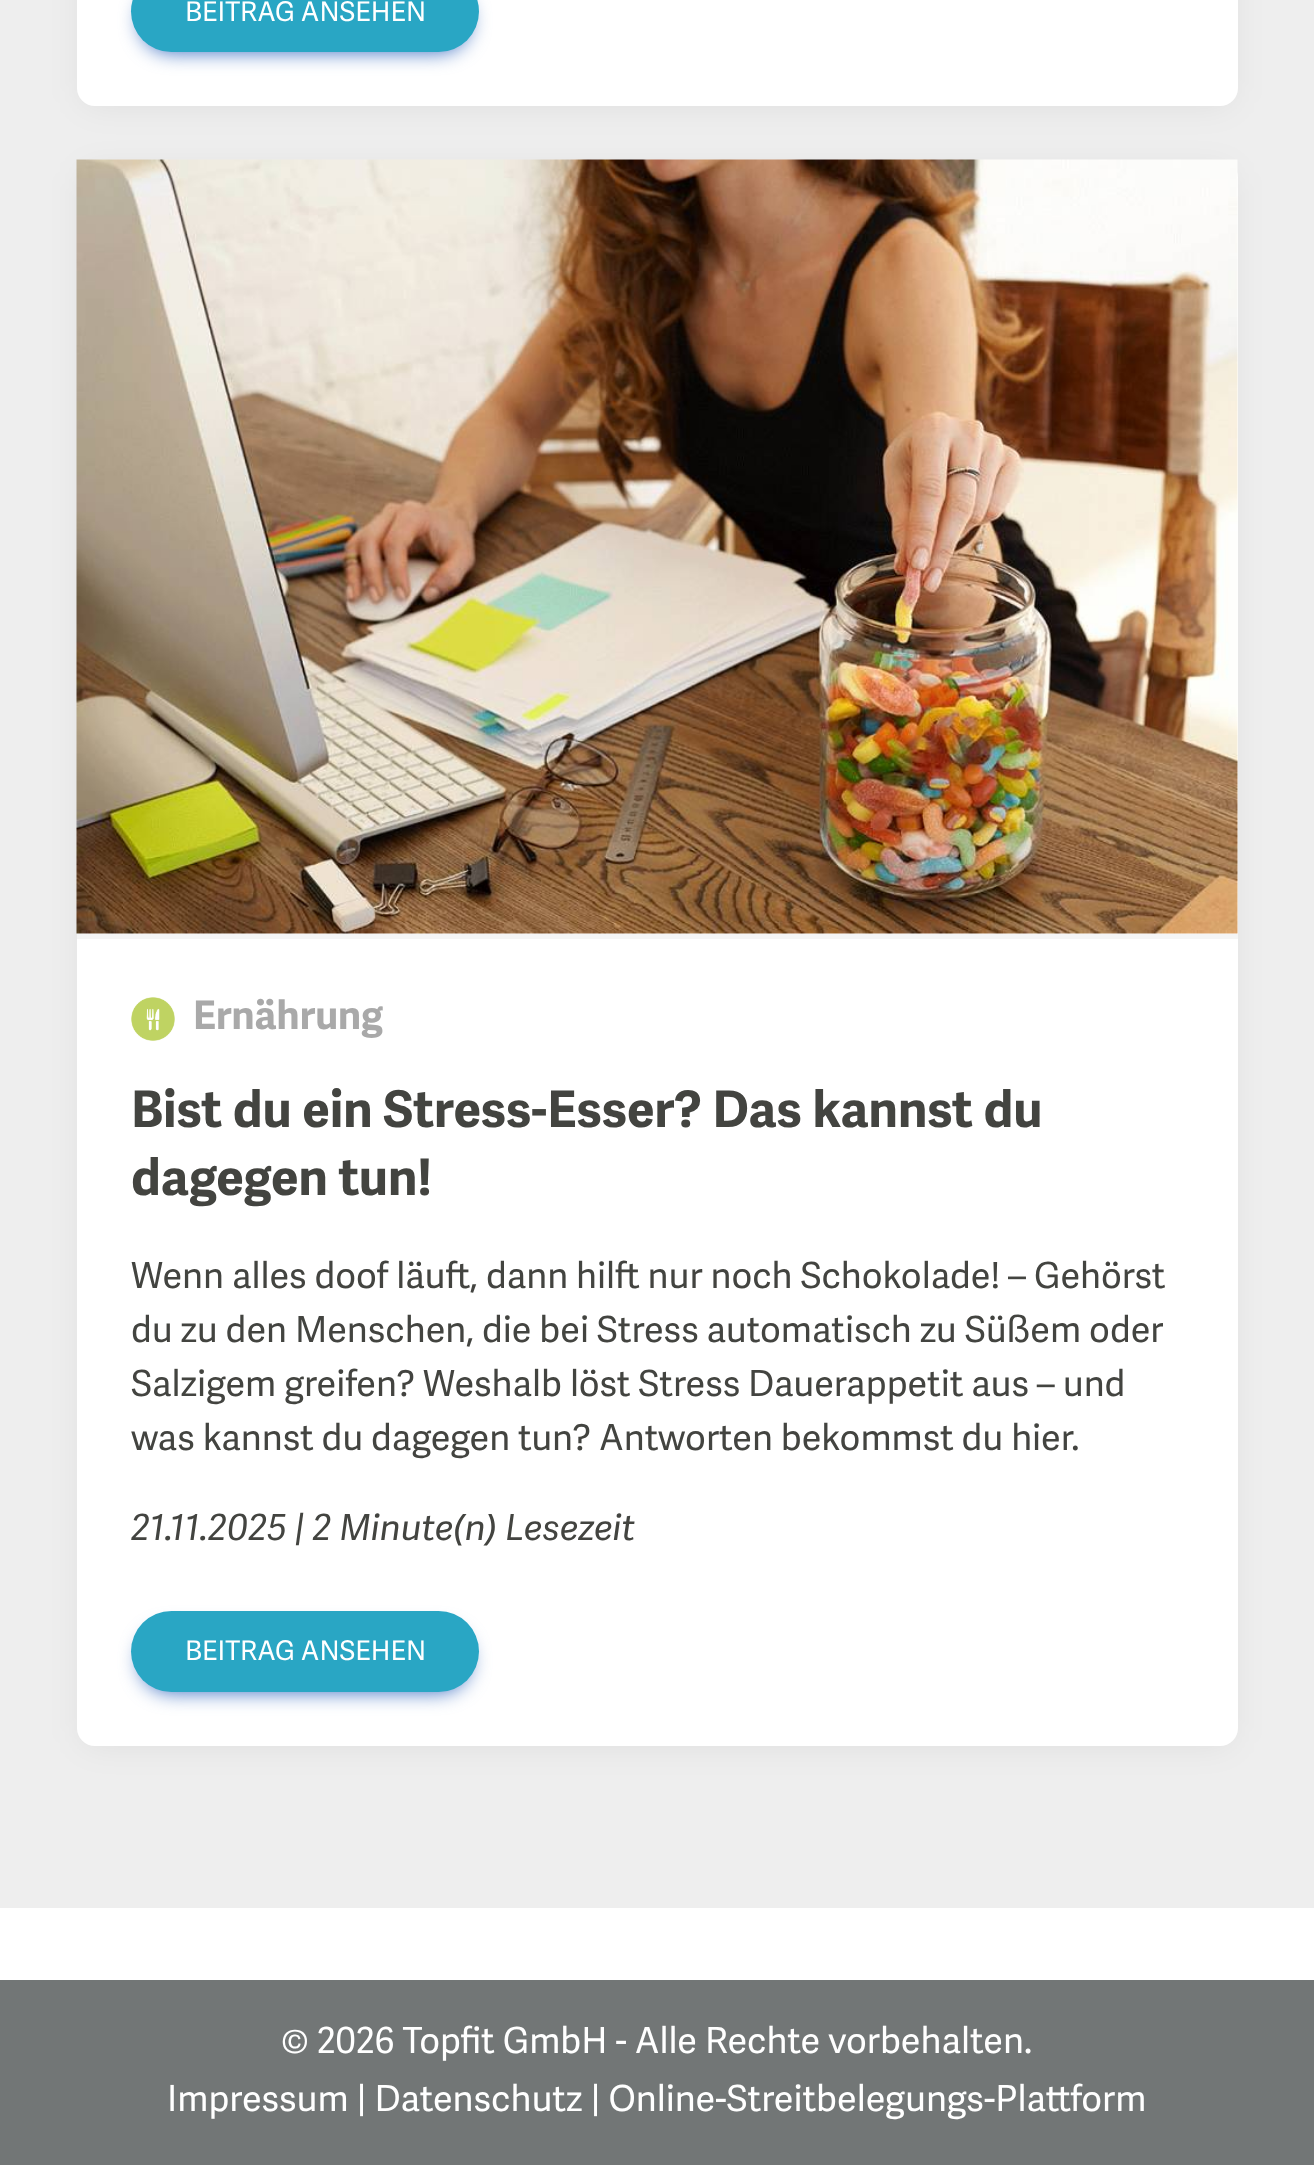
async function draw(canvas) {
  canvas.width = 1314;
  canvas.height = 2165;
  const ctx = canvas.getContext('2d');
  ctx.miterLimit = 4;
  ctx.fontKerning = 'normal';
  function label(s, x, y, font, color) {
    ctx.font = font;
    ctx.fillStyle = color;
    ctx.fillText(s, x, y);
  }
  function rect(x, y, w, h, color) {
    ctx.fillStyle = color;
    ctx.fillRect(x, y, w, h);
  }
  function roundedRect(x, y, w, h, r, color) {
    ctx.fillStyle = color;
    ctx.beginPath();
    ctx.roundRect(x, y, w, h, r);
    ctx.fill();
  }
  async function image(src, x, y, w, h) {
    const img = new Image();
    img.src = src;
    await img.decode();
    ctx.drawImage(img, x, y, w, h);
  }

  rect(0, 0, 1314, 2165, '#fff');
  rect(0, 0, 1314, 1908, '#eee');
  ctx.fillStyle = '#00000012';
  ctx.filter = 'blur(17px)';
  ctx.beginPath();
  ctx.roundRect(83, -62, 1148, 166, 11);
  ctx.fill();
  ctx.filter = 'none';
  roundedRect(77, -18, 1161, 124, 18, '#fff');
  ctx.fillStyle = '#386bc0';
  ctx.filter = 'blur(10px)';
  ctx.beginPath();
  ctx.roundRect(140, -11, 330, 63, 31.5);
  ctx.fill();
  ctx.filter = 'none';
  roundedRect(131, -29, 348, 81, 40.5, '#29a6c4');
  label('BEITRAG ANSEHEN', 185, 21, '27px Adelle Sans', '#fff');
  ctx.fillStyle = '#00000012';
  ctx.filter = 'blur(17px)';
  ctx.beginPath();
  ctx.roundRect(83, 171, 1148, 1573, 11);
  ctx.fill();
  ctx.filter = 'none';
  roundedRect(77, 160, 1161, 1586, 18, '#fff');
  rect(77, 934, 1161, 5, '#f5f5f5');
  await image('assets/img1.png', 76, 159, 1162, 775);
  await image('assets/img2.png', 131, 997, 44, 44);
  label('Ernährung', 193, 1029, 'bold 39.5px Adelle Sans', '#a9a9a9');
  label('Bist du ein Stress-Esser? Das kannst du', 131, 1127, 'bold 50.4px Adelle Sans', '#434440');
  label('dagegen tun!', 131, 1195, 'bold 50.4px Adelle Sans', '#434440');
  label('Wenn alles doof läuft, dann hilft nur noch Schokolade! – Gehörst', 131, 1288, '36px Adelle Sans', '#434440');
  label('du zu den Menschen, die bei Stress automatisch zu Süßem oder', 131, 1342, '36px Adelle Sans', '#434440');
  label('Salzigem greifen? Weshalb löst Stress Dauerappetit aus – und', 131, 1396, '36px Adelle Sans', '#434440');
  label('was kannst du dagegen tun? Antworten bekommst du hier.', 131, 1450, '36px Adelle Sans', '#434440');
  label('21.11.2025 | 2 Minute(n) Lesezeit', 131, 1540, 'italic 36px Adelle Sans', '#434440');
  ctx.fillStyle = '#386bc0';
  ctx.filter = 'blur(10px)';
  ctx.beginPath();
  ctx.roundRect(140, 1629, 330, 63, 31.5);
  ctx.fill();
  ctx.filter = 'none';
  roundedRect(131, 1611, 348, 81, 40.5, '#29a6c4');
  label('BEITRAG ANSEHEN', 185, 1660, '27px Adelle Sans', '#fff');
  rect(0, 1980, 1314, 185, '#727676');
  label('© 2026 Topfit GmbH - Alle Rechte vorbehalten.', 281, 2053, '36px Adelle Sans', '#fff');
  label('Impressum | Datenschutz | Online-Streitbelegungs-Plattform', 167, 2111, '36px Adelle Sans', '#fff');
}

draw(document.querySelector('canvas'));
